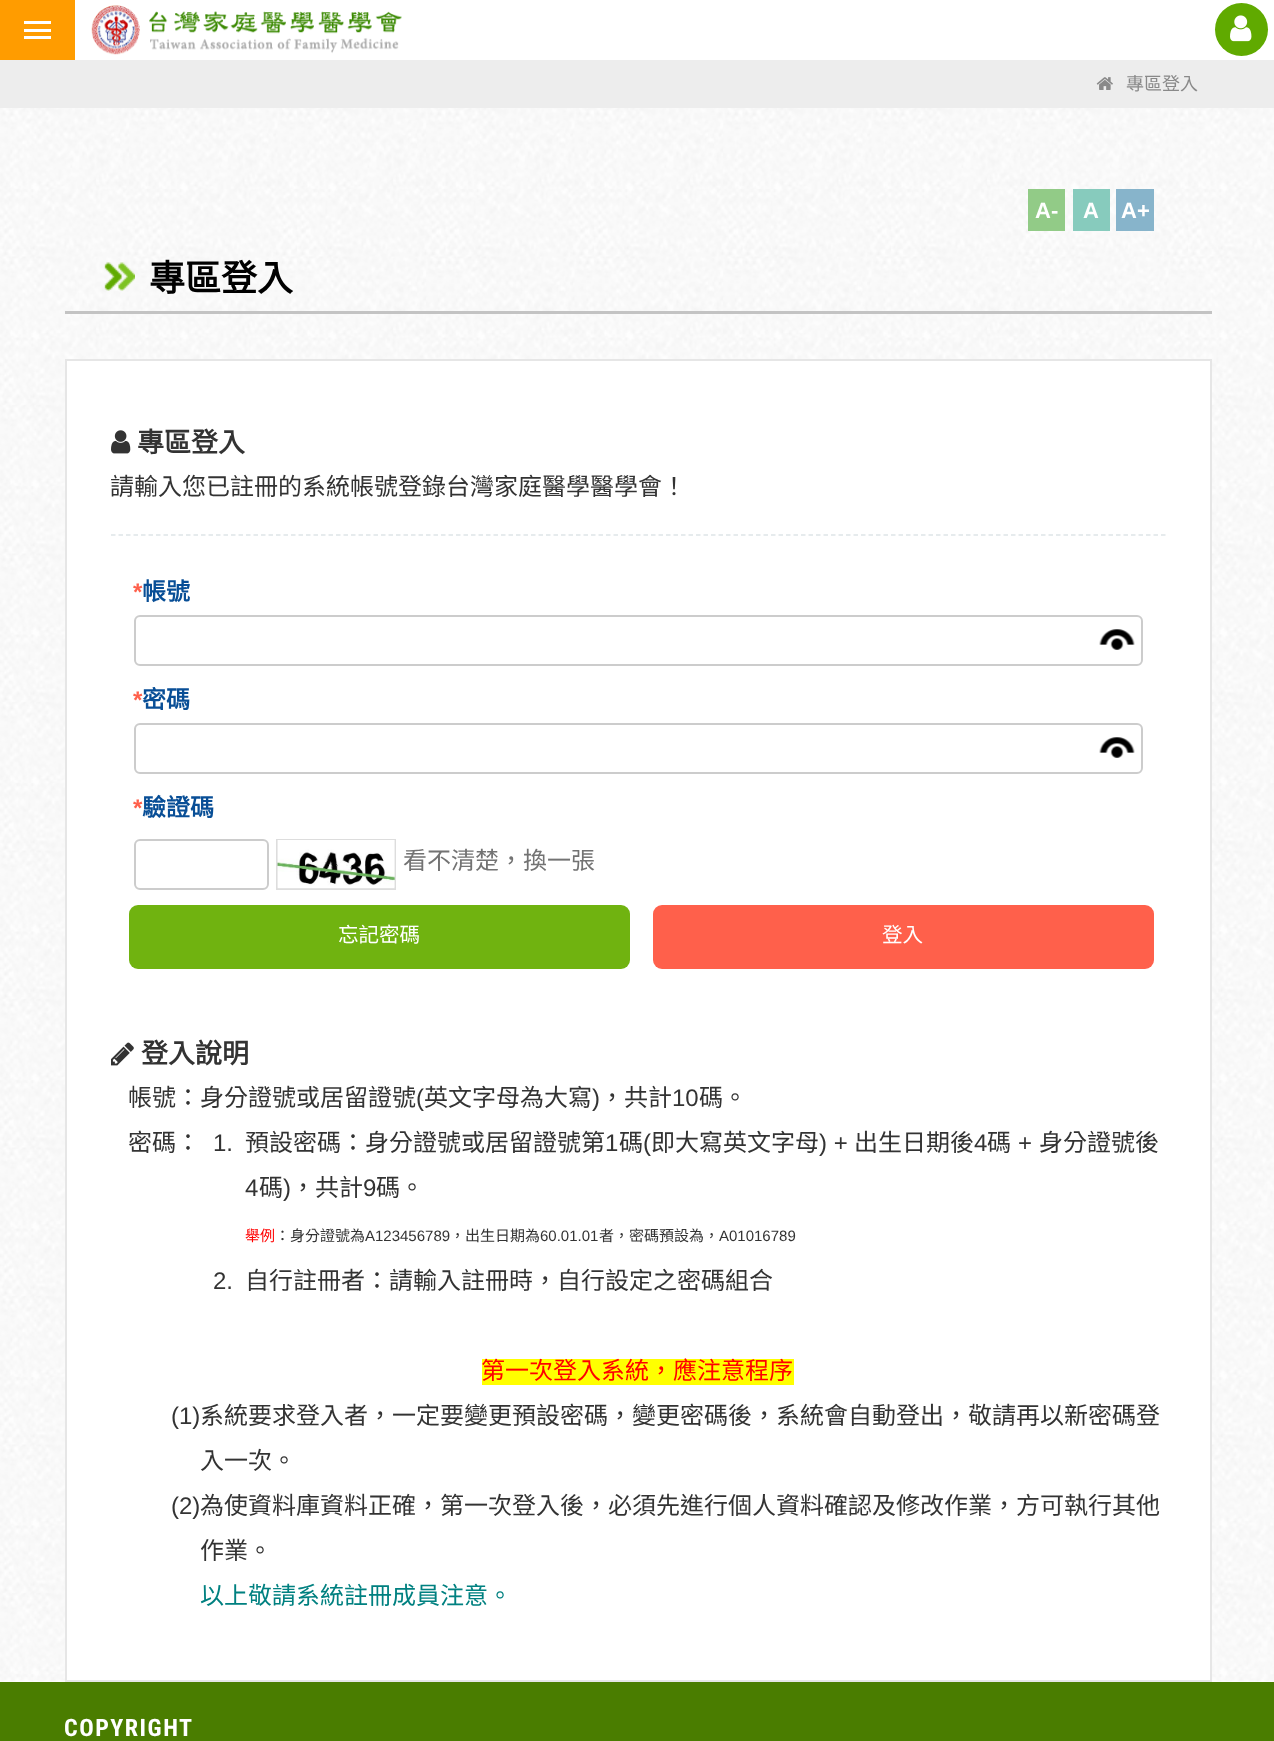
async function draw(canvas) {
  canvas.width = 1274;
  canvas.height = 1741;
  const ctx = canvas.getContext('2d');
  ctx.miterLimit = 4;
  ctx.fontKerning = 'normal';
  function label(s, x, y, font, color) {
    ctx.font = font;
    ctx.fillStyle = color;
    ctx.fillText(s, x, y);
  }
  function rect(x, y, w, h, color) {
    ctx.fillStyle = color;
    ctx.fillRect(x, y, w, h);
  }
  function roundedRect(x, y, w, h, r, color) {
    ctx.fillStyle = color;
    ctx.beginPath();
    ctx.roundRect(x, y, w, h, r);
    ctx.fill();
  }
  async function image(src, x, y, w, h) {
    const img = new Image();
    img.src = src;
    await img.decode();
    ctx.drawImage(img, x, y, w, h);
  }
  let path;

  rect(0, 0, 1274, 1741, '#fff');
  rect(0, 0, 75, 60, '#ff9c00');
  rect(24, 29, 27, 3, '#fff');
  rect(24, 21, 27, 3, '#fff');
  rect(24, 36, 27, 3, '#fff');
  await image('assets/img1.png', 91, 5, 311, 50);
  ctx.fillStyle = '#60aa00';
  ctx.beginPath();
  ctx.arc(1241.5, 29.5, 26.5, 0, 2 * Math.PI);
  ctx.fill();
  await image('assets/img2.png', 1230, 15, 22, 27);
  rect(0, 60, 1274, 48, '#ededed');
  await image('assets/img3.png', 1096, 77, 17, 13);
  label('專區登入', 1126, 90, '18px Noto Sans CJK TC', '#898989');
  await image('assets/img4.png', 0, 108, 1274, 1574);
  rect(1028, 189, 37, 42, '#92cb87');
  label('A-', 1035, 218, 'bold 22px Liberation Sans', '#fff');
  rect(1073, 189, 37, 42, '#87cbbd');
  label('A', 1083, 218, 'bold 22px Liberation Sans', '#fff');
  rect(1116, 189, 38, 42, '#87b4cb');
  label('A+', 1121, 218, 'bold 22px Liberation Sans', '#fff');
  rect(65, 311, 1147, 3, '#c3c3c3');
  await image('assets/img5.png', 104, 262, 31, 29);
  label('專區登入', 149, 291, 'bold 36px Noto Sans CJK TC', '#000');
  ctx.fillStyle = '#fff';
  ctx.beginPath();
  ctx.rect(66, 360, 1145, 1321);
  ctx.fill();
  ctx.strokeStyle = '#e6e6e6';
  ctx.lineWidth = 2;
  ctx.stroke();
  await image('assets/img6.png', 111, 430, 20, 24);
  label('專區登入', 137, 452, 'bold 27px Noto Sans CJK TC', '#333');
  label('請輸入您已註冊的系統帳號登錄台灣家庭醫學醫學會！', 110, 495, '24px Noto Sans CJK TC', '#333');
  path = new Path2D('M111 535H1165.5');
  ctx.strokeStyle = '#dee5e7';
  ctx.lineWidth = 1.5;
  ctx.setLineDash([4.5, 3]);
  ctx.stroke(path);
  label('*', 133, 600, 'bold 24px Liberation Sans', '#ff604b');
  label('帳號', 142, 600, 'bold 24px Noto Sans CJK TC', '#084e96');
  ctx.beginPath();
  ctx.roundRect(135, 616, 1007, 49, 5);
  ctx.strokeStyle = '#ccc';
  ctx.lineWidth = 2;
  ctx.setLineDash([]);
  ctx.stroke();
  await image('assets/img7.png', 1099, 629, 36, 21);
  label('*', 133, 708, 'bold 24px Liberation Sans', '#ff604b');
  label('密碼', 142, 708, 'bold 24px Noto Sans CJK TC', '#084e96');
  ctx.beginPath();
  ctx.roundRect(135, 724, 1007, 49, 5);
  ctx.stroke();
  await image('assets/img7.png', 1099, 737, 36, 21);
  label('*', 133, 816, 'bold 24px Liberation Sans', '#ff604b');
  label('驗證碼', 142, 816, 'bold 24px Noto Sans CJK TC', '#084e96');
  ctx.beginPath();
  ctx.roundRect(135, 840, 133, 49, 5);
  ctx.stroke();
  ctx.strokeStyle = '#ddd';
  ctx.strokeRect(277, 840, 118, 49);
  await image('assets/img8.png', 277, 840, 118, 49);
  label('看不清楚，換一張', 403, 869, '24px Noto Sans CJK TC', '#737373');
  roundedRect(129, 905, 501, 64, 9, '#70b310');
  label('忘記密碼', 338, 942, '20.5px Noto Sans CJK TC', '#fff');
  roundedRect(653, 905, 501, 64, 9, '#ff604b');
  label('登入', 882, 942, '20.5px Noto Sans CJK TC', '#fff');
  await image('assets/img9.png', 111, 1042, 23, 24);
  label('登入說明', 141, 1063, 'bold 27px Noto Sans CJK TC', '#333');
  label('帳號：身分證號或居留證號', 128, 1106, '24px Noto Sans CJK TC', '#333');
  label('(', 416, 1106, '24px Liberation Sans', '#333');
  label('英文字母為大寫', 424, 1106, '24px Noto Sans CJK TC', '#333');
  label(')', 592, 1106, '24px Liberation Sans', '#333');
  label('，共計', 600, 1106, '24px Noto Sans CJK TC', '#333');
  label('10', 672, 1106, '24px Liberation Sans', '#333');
  label('碼。', 699, 1106, '24px Noto Sans CJK TC', '#333');
  label('密碼：', 128, 1151, '24px Noto Sans CJK TC', '#333');
  label('1.', 213, 1151, '24px Liberation Sans', '#333');
  label('預設密碼：身分證號或居留證號第', 245, 1151, '24px Noto Sans CJK TC', '#333');
  label('1', 605, 1151, '24px Liberation Sans', '#333');
  label('碼', 619, 1151, '24px Noto Sans CJK TC', '#333');
  label('(', 643, 1151, '24px Liberation Sans', '#333');
  label('即大寫英文字母', 651, 1151, '24px Noto Sans CJK TC', '#333');
  label(') +', 819, 1151, '24px Liberation Sans', '#333');
  label('出生日期後', 854, 1151, '24px Noto Sans CJK TC', '#333');
  label('4', 974, 1151, '24px Liberation Sans', '#333');
  label('碼', 987, 1151, '24px Noto Sans CJK TC', '#333');
  label('+', 1018, 1151, '24px Liberation Sans', '#333');
  label('身分證號後', 1039, 1151, '24px Noto Sans CJK TC', '#333');
  label('4', 245, 1196, '24px Liberation Sans', '#333');
  label('碼', 259, 1196, '24px Noto Sans CJK TC', '#333');
  label(')', 283, 1196, '24px Liberation Sans', '#333');
  label('，共計', 291, 1196, '24px Noto Sans CJK TC', '#333');
  label('9', 363, 1196, '24px Liberation Sans', '#333');
  label('碼。', 376, 1196, '24px Noto Sans CJK TC', '#333');
  label('舉例', 245, 1241, '15px Noto Sans CJK TC', '#f00');
  label('：身分證號為', 275, 1241, '15px Noto Sans CJK TC', '#333');
  label('A123456789', 365, 1241, '15px Liberation Sans', '#333');
  label('，出生日期為', 450, 1241, '15px Noto Sans CJK TC', '#333');
  label('60.01.01', 540, 1241, '15px Liberation Sans', '#333');
  label('者，密碼預設為，', 599, 1241, '15px Noto Sans CJK TC', '#333');
  label('A01016789', 719, 1241, '15px Liberation Sans', '#333');
  label('2.', 213, 1289, '24px Liberation Sans', '#333');
  label('自行註冊者：請輸入註冊時，自行設定之密碼組合', 245, 1289, '24px Noto Sans CJK TC', '#333');
  rect(482, 1359, 312, 26, '#ff0');
  label('第一次登入系統，應注意程序', 481, 1379, '24px Noto Sans CJK TC', '#f00');
  label('(1)', 171, 1424, '24px Liberation Sans', '#333');
  label('系統要求登入者，一定要變更預設密碼，變更密碼後，系統會自動登出，敬請再以新密碼登', 200, 1424, '24px Noto Sans CJK TC', '#333');
  label('入一次。', 200, 1469, '24px Noto Sans CJK TC', '#333');
  label('(2)', 171, 1514, '24px Liberation Sans', '#333');
  label('為使資料庫資料正確，第一次登入後，必須先進行個人資料確認及修改作業，方可執行其他', 200, 1514, '24px Noto Sans CJK TC', '#333');
  label('作業。', 200, 1559, '24px Noto Sans CJK TC', '#333');
  label('以上敬請系統註冊成員注意。', 200, 1604, '24px Noto Sans CJK TC', '#008080');
  rect(0, 1682, 1274, 59, '#4a7d00');
  ctx.letterSpacing = '1.5px';
  label('COPYRIGHT', 64, 1736, 'bold 24px Roboto Condensed', '#fff');
}

draw(document.querySelector('canvas'));
